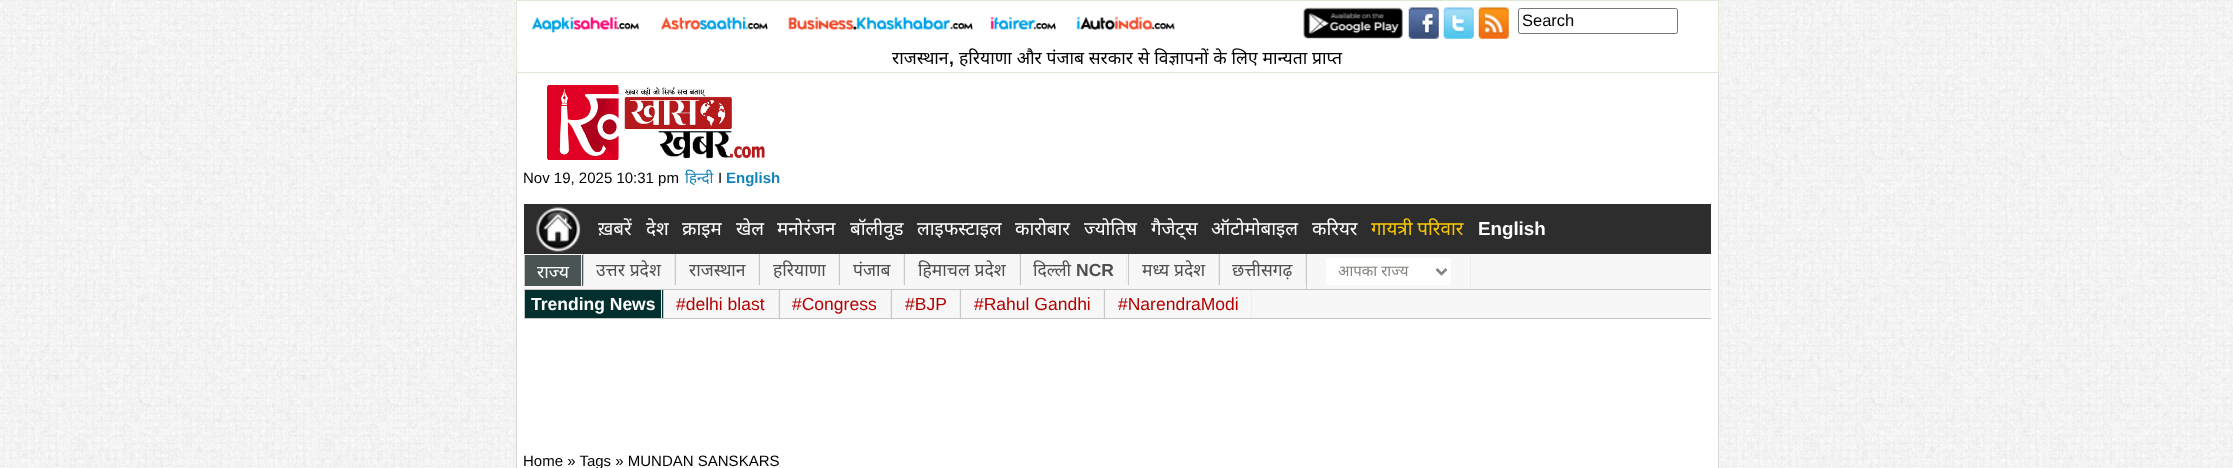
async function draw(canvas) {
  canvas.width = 2233;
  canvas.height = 468;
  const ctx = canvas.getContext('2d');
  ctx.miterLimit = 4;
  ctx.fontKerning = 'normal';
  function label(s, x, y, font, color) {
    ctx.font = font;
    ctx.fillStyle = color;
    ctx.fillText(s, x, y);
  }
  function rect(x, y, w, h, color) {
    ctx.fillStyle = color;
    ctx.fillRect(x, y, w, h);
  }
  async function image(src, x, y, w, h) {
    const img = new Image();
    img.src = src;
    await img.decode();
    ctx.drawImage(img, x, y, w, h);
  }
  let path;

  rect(0, 0, 2233, 468, '#fff');
  await image('assets/img1.png', 0, 0, 2233, 468);
  ctx.beginPath();
  ctx.rect(516.5, 0.5, 1202, 72);
  ctx.fill();
  ctx.strokeStyle = '#dce9d5';
  ctx.stroke();
  await image('assets/img2.png', 531, 16, 109, 17);
  await image('assets/img3.png', 660, 16, 108, 14);
  await image('assets/img4.png', 788, 16, 185, 14);
  await image('assets/img5.png', 990, 16, 66, 14);
  await image('assets/img6.png', 1076, 16, 99, 14);
  await image('assets/img7.png', 1303, 7, 100, 32);
  await image('assets/img8.png', 1408, 7, 31, 32);
  await image('assets/img9.png', 1443, 7, 31, 32);
  await image('assets/img10.png', 1478, 7, 31, 32);
  ctx.beginPath();
  ctx.roundRect(1518.5, 8.5, 159, 25, 2);
  ctx.strokeStyle = '#767676';
  ctx.stroke();
  label('Search', 1522, 26, '16.5px Liberation Sans', '#000');
  label('राजस्थान', 892, 64, '17.5px Noto Sans', '#000');
  label(',', 949, 64, 'bold 17.5px Liberation Sans', '#000');
  ctx.wordSpacing = '0.25px';
  label('हरियाणा और पंजाब सरकार से विज्ञापनों के लिए मान्यता प्राप्त', 959, 64, '17.5px Noto Sans', '#000');
  rect(517, 73, 1201, 395, '#fff');
  rect(1718, 73, 1, 395, '#d7d7d7');
  rect(516, 73, 1, 395, '#d7d7d7');
  await image('assets/img11.png', 547, 85, 218, 75);
  ctx.wordSpacing = '0px';
  label('Nov 19, 2025 10:31 pm', 523, 183, '15px Liberation Sans', '#000');
  label('हिन्दी', 685, 183, '15px Noto Sans', '#1483ba');
  label('I', 718, 183, '15px Liberation Sans', '#000');
  label('English', 726, 183, 'bold 15px Liberation Sans', '#1483ba');
  rect(524, 204, 1187, 50, '#2d2d2d');
  await image('assets/img12.png', 536, 207, 45, 45);
  label('ख़बरें', 598, 235, '18.75px Noto Sans', '#fff');
  label('देश', 646, 235, '18.75px Noto Sans', '#fff');
  label('क्राइम', 682, 235, '18.75px Noto Sans', '#fff');
  label('खेल', 736, 235, '18.75px Noto Sans', '#fff');
  label('मनोरंजन', 777, 235, '18.75px Noto Sans', '#fff');
  label('बॉलीवुड', 850, 235, '18.75px Noto Sans', '#fff');
  label('लाइफस्टाइल', 917, 235, '18.75px Noto Sans', '#fff');
  label('कारोबार', 1015, 235, '18.75px Noto Sans', '#fff');
  label('ज्योतिष', 1084, 235, '18.75px Noto Sans', '#fff');
  label('गैजेट्स', 1151, 235, '18.75px Noto Sans', '#fff');
  label('ऑटोमोबाइल', 1211, 235, '18.75px Noto Sans', '#fff');
  label('करियर', 1312, 235, '18.75px Noto Sans', '#fff');
  label('गायत्री परिवार', 1371, 235, '18.75px Noto Sans', '#f9c704');
  label('English', 1478, 235, 'bold 18.75px Liberation Sans', '#fff');
  rect(524, 254, 1187, 35, '#f7f7f7');
  rect(524, 289, 1187, 1, '#c7c7c7');
  rect(525, 255, 58, 31, '#4b5454');
  rect(581, 255, 1, 31, '#ededed');
  rect(524, 255, 1, 31, '#c8c8c8');
  label('राज्य', 537, 278, '17.5px Noto Sans', '#fff');
  rect(674, 254, 1, 31, '#ededed');
  rect(583, 254, 1, 31, '#c8c8c8');
  ctx.wordSpacing = '0.25px';
  label('उत्तर प्रदेश', 596, 276, '17.5px Noto Sans', '#4f4f4f');
  rect(758, 254, 1, 31, '#ededed');
  rect(675, 254, 1, 31, '#c8c8c8');
  ctx.wordSpacing = '0px';
  label('राजस्थान', 689, 276, '17.5px Noto Sans', '#4f4f4f');
  rect(838, 254, 1, 31, '#ededed');
  rect(759, 254, 1, 31, '#c8c8c8');
  label('हरियाणा', 773, 276, '17.5px Noto Sans', '#4f4f4f');
  rect(903, 254, 1, 31, '#ededed');
  rect(839, 254, 1, 31, '#c8c8c8');
  label('पंजाब', 853, 276, '17.5px Noto Sans', '#4f4f4f');
  rect(1019, 254, 1, 31, '#ededed');
  rect(904, 254, 1, 31, '#c8c8c8');
  ctx.wordSpacing = '0.25px';
  label('हिमाचल प्रदेश', 918, 276, '17.5px Noto Sans', '#4f4f4f');
  rect(1126, 254, 1, 31, '#ededed');
  rect(1020, 254, 1, 31, '#c8c8c8');
  ctx.wordSpacing = '0px';
  label('दिल्ली', 1033, 276, '17.5px Noto Sans', '#4f4f4f');
  label('NCR', 1076, 276, 'bold 17.5px Liberation Sans', '#4f4f4f');
  rect(1218, 254, 1, 31, '#ededed');
  rect(1128, 254, 1, 31, '#c8c8c8');
  ctx.wordSpacing = '0.25px';
  label('मध्य प्रदेश', 1142, 276, '17.5px Noto Sans', '#4f4f4f');
  rect(1305, 254, 1, 31, '#ededed');
  rect(1219, 254, 1, 31, '#c8c8c8');
  ctx.wordSpacing = '0px';
  label('छत्तीसगढ़', 1232, 276, '17.5px Noto Sans', '#4f4f4f');
  rect(1470, 254, 1, 35, '#ededed');
  rect(1306, 254, 1, 35, '#c8c8c8');
  rect(1326, 258, 125, 27, '#fff');
  path = new Path2D('M1436.5 269L1441.5 274L1446.5 269');
  ctx.strokeStyle = '#85827e';
  ctx.lineWidth = 2.5;
  ctx.stroke(path);
  label('आपका राज्य', 1338, 276, '15px Noto Sans', '#85827e');
  rect(664, 290, 1047, 28, '#f7f7f7');
  rect(524, 318, 1187, 1, '#c7c7c7');
  rect(525, 290, 138, 28, '#032f2f');
  rect(661, 290, 1, 28, '#ededed');
  rect(524, 290, 1, 28, '#c8c8c8');
  label('Trending News', 531, 310, 'bold 17.5px Liberation Sans', '#fff');
  rect(778, 290, 1, 28, '#ededed');
  rect(663, 290, 1, 28, '#c8c8c8');
  label('#delhi blast', 676, 310, '17.5px Liberation Sans', '#b40000');
  rect(890, 290, 1, 28, '#ededed');
  rect(779, 290, 1, 28, '#c8c8c8');
  label('#Congress', 792, 310, '17.5px Liberation Sans', '#b40000');
  rect(959, 290, 1, 28, '#ededed');
  rect(891, 290, 1, 28, '#c8c8c8');
  label('#BJP', 905, 310, '17.5px Liberation Sans', '#b40000');
  rect(1103, 290, 1, 28, '#ededed');
  rect(960, 290, 1, 28, '#c8c8c8');
  label('#Rahul Gandhi', 974, 310, '17.5px Liberation Sans', '#b40000');
  rect(1251, 290, 1, 28, '#ededed');
  rect(1104, 290, 1, 28, '#c8c8c8');
  label('#NarendraModi', 1118, 310, '17.5px Liberation Sans', '#b40000');
  label('Home » Tags » MUNDAN SANSKARS', 523, 466, '15px Liberation Sans', '#000');
}

draw(document.querySelector('canvas'));
